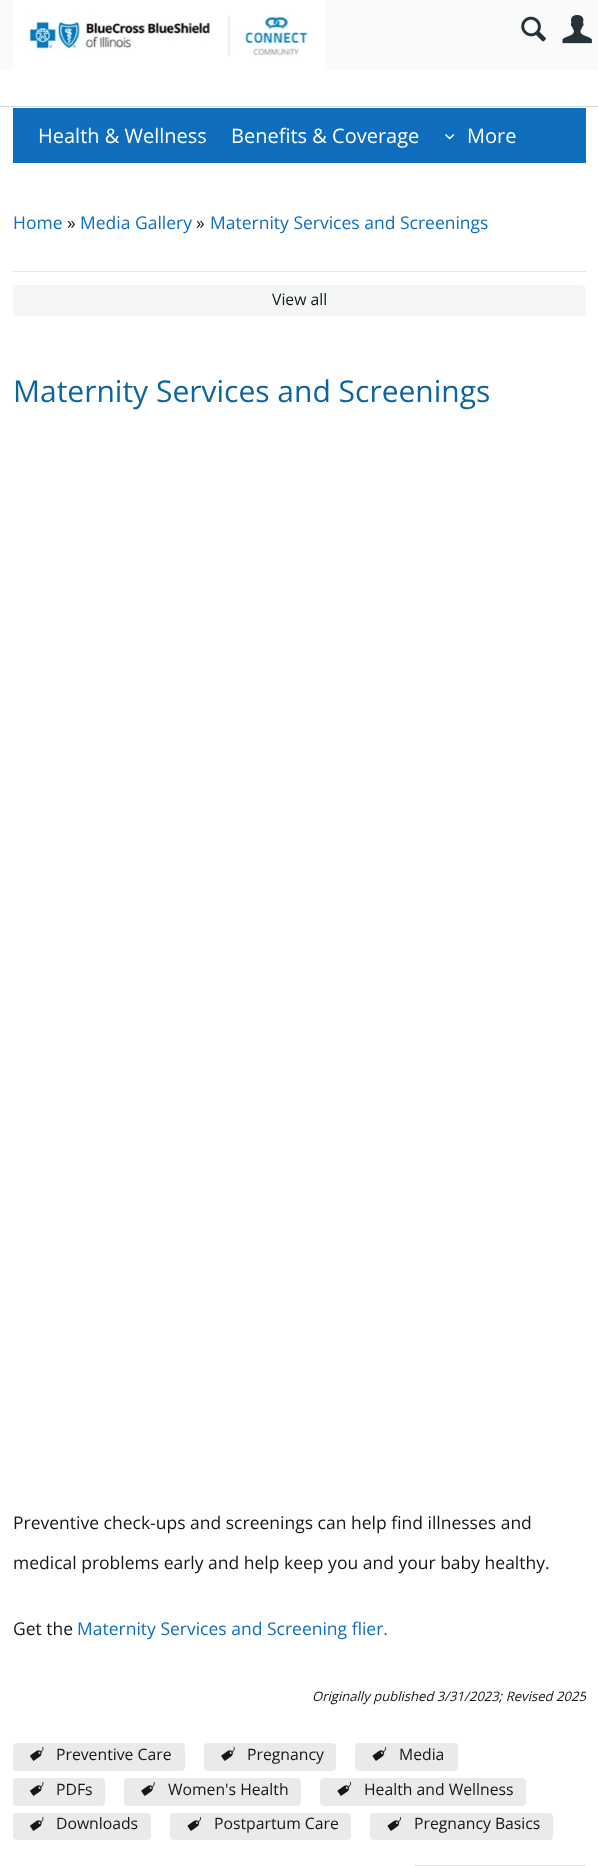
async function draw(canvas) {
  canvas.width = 598;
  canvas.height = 1866;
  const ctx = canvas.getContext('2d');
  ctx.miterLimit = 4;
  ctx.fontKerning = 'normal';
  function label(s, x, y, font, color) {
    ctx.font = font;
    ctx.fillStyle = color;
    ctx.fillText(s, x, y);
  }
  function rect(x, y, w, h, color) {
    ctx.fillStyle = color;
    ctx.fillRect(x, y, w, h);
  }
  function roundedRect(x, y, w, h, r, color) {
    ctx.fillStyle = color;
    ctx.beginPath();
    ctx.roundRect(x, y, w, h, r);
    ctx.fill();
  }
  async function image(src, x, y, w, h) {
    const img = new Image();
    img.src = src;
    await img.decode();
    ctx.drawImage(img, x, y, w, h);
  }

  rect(0, 0, 598, 1866, '#fff');
  rect(0, 106, 598, 1, '#cfd8dc');
  rect(0, 0, 598, 70, '#fafafa');
  rect(13, 0, 312, 70, '#fff');
  await image('assets/img1.png', 28, 15, 281, 42);
  await image('assets/img2.png', 521, 16, 25, 26);
  await image('assets/img3.png', 562, 15, 30, 29);
  rect(13, 108, 573, 55, '#0f6dbe');
  label('Health & Wellness', 38, 143, '20px Open Sans', '#fff');
  label('Benefits & Coverage', 231, 143, '20px Open Sans', '#fff');
  await image('assets/img4.png', 445, 134, 10, 6);
  label('More', 467, 143, '20px Open Sans', '#fff');
  label('Home', 13, 229, '17.5px Open Sans', '#0f6dbe');
  label('»', 67, 229, '17.5px Open Sans', '#11171a');
  label('Media Gallery', 80, 229, '17.5px Open Sans', '#0f6dbe');
  label('»', 196, 229, '17.5px Open Sans', '#11171a');
  label('Maternity Services and Screenings', 210, 229, '17.5px Open Sans', '#0f6dbe');
  rect(13, 271, 573, 1, '#e5e5e6');
  roundedRect(13, 285, 573, 31, 4, '#f5f6f6');
  label('View all', 272, 305, '15.75px Open Sans', '#11171a');
  label('Maternity Services and Screenings', 13, 402, '30px Open Sans', '#0d65a0');
  label('Preventive check-ups and screenings can help find illnesses and', 13, 1529, '17.5px Open Sans', '#11171a');
  label('medical problems early and help keep you and your baby healthy.', 13, 1569, '17.5px Open Sans', '#11171a');
  label('Get the', 13, 1635, '17.5px Open Sans', '#11171a');
  label('Maternity Services and Screening flier.', 77, 1635, '17.5px Open Sans', '#0f6dbe');
  ctx.save();
  ctx.beginPath();
  ctx.rect(13, 1503, 573, 213);
  ctx.clip();
  label('Originally published 3/31/2023; Revised 2025', 312, 1701, 'italic 13.1px Open Sans', '#11171a');
  ctx.restore();
  roundedRect(13, 1743, 172, 28, 4, '#eaeaea');
  await image('assets/img5.png', 30, 1746, 14, 15);
  label('Preventive Care', 56, 1760, '15.75px Open Sans', '#11171a');
  roundedRect(204, 1743, 132, 28, 4, '#eaeaea');
  await image('assets/img6.png', 221, 1746, 14, 15);
  label('Pregnancy', 247, 1760, '15.75px Open Sans', '#11171a');
  roundedRect(355, 1743, 103, 28, 4, '#eaeaea');
  await image('assets/img7.png', 372, 1746, 14, 15);
  label('Media', 399, 1760, '15.75px Open Sans', '#11171a');
  roundedRect(13, 1778, 92, 28, 4, '#eaeaea');
  await image('assets/img5.png', 30, 1781, 14, 15);
  label('PDFs', 56, 1795, '15.75px Open Sans', '#11171a');
  roundedRect(124, 1778, 177, 28, 4, '#eaeaea');
  await image('assets/img6.png', 141, 1781, 14, 15);
  label('Women\'s Health', 168, 1795, '15.75px Open Sans', '#11171a');
  roundedRect(320, 1778, 206, 28, 4, '#eaeaea');
  await image('assets/img7.png', 337, 1781, 14, 15);
  label('Health and Wellness', 364, 1795, '15.75px Open Sans', '#11171a');
  roundedRect(13, 1813, 138, 27, 4, '#eaeaea');
  await image('assets/img5.png', 30, 1816, 14, 15);
  label('Downloads', 56, 1829, '15.75px Open Sans', '#11171a');
  roundedRect(170, 1813, 181, 27, 4, '#eaeaea');
  await image('assets/img7.png', 187, 1816, 14, 15);
  label('Postpartum Care', 214, 1829, '15.75px Open Sans', '#11171a');
  roundedRect(370, 1813, 183, 27, 4, '#eaeaea');
  await image('assets/img7.png', 387, 1816, 14, 15);
  label('Pregnancy Basics', 414, 1829, '15.75px Open Sans', '#11171a');
  rect(414, 1865, 172, 1, '#dedfdf');
}

draw(document.querySelector('canvas'));
